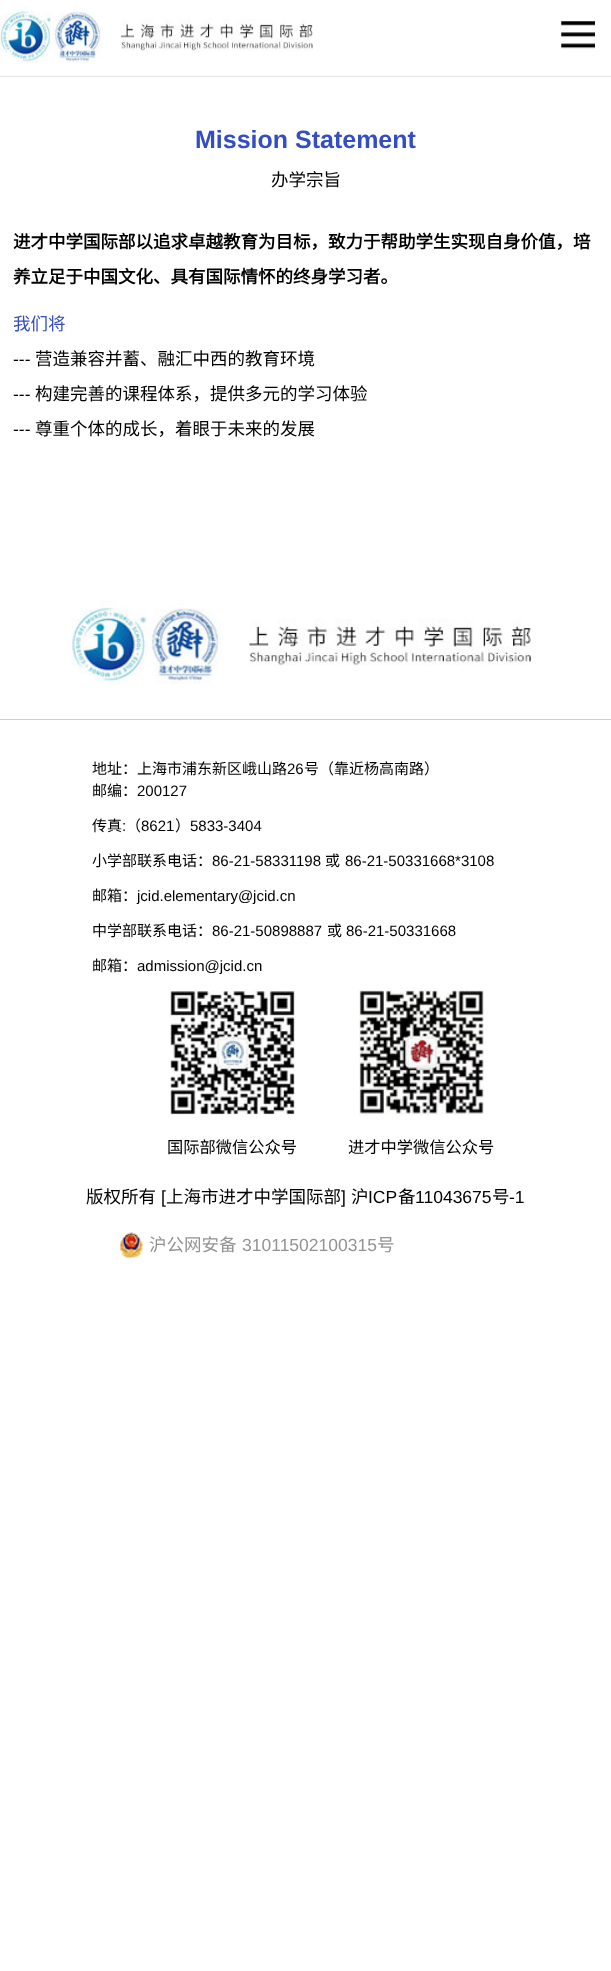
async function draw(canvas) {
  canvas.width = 611;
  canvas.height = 1971;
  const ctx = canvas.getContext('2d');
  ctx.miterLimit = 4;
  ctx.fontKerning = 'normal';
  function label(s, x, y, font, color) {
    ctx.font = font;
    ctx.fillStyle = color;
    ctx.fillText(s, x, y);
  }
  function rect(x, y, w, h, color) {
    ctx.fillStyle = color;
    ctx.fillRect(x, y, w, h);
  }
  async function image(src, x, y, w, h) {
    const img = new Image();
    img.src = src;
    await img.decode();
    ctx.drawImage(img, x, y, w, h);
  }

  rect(0, 0, 611, 1971, '#fff');
  rect(0, 76, 611, 1, '#e5e5e5');
  await image('assets/img1.png', 0, 6, 313, 58);
  await image('assets/img2.png', 561, 21, 34, 28);
  label('Mission Statement', 195, 148, 'bold 25px Liberation Sans', '#344dc3');
  label('办学宗旨', 271, 186, '17.5px Noto Sans CJK SC', '#000');
  label('进才中学国际部以追求卓越教育为目标，致力于帮助学生实现自身价值，培', 13, 248, 'bold 17.5px Noto Sans CJK SC', '#000');
  label('养立足于中国文化、具有国际情怀的终身学习者。', 13, 283, 'bold 17.5px Noto Sans CJK SC', '#000');
  label('我们将', 13, 330, '17.5px Noto Sans CJK SC', '#344dc3');
  label('---', 13, 365, '17.5px Liberation Sans', '#000');
  label('营造兼容并蓄、融汇中西的教育环境', 35, 365, '17.5px Noto Sans CJK SC', '#000');
  label('---', 13, 400, '17.5px Liberation Sans', '#000');
  label('构建完善的课程体系，提供多元的学习体验', 35, 400, '17.5px Noto Sans CJK SC', '#000');
  label('---', 13, 435, '17.5px Liberation Sans', '#000');
  label('尊重个体的成长，着眼于未来的发展', 35, 435, '17.5px Noto Sans CJK SC', '#000');
  rect(0, 719, 611, 1, '#cecfd0');
  await image('assets/img3.png', 71, 600, 460, 85);
  label('地址：上海市浦东新区峨山路', 92, 774, '15px Noto Sans CJK SC', '#000');
  label('26', 287, 774, '15px Liberation Sans', '#000');
  label('号（靠近杨高南路）', 304, 774, '15px Noto Sans CJK SC', '#000');
  label('邮编：', 92, 796, '15px Noto Sans CJK SC', '#000');
  label('200127', 137, 796, '15px Liberation Sans', '#000');
  label('传真', 92, 831, '15px Noto Sans CJK SC', '#000');
  label(':', 122, 831, '15px Liberation Sans', '#000');
  label('（', 126, 831, '15px Noto Sans CJK SC', '#000');
  label('8621', 141, 831, '15px Liberation Sans', '#000');
  label('）', 175, 831, '15px Noto Sans CJK SC', '#000');
  label('5833-3404', 190, 831, '15px Liberation Sans', '#000');
  label('小学部联系电话：', 92, 866, '15px Noto Sans CJK SC', '#000');
  label('86-21-58331198', 212, 866, '15px Liberation Sans', '#000');
  label('或', 325, 866, '15px Noto Sans CJK SC', '#000');
  label('86-21-50331668*3108', 345, 866, '15px Liberation Sans', '#000');
  label('邮箱：', 92, 901, '15px Noto Sans CJK SC', '#000');
  label('jcid.elementary@jcid.cn', 137, 901, '15px Liberation Sans', '#000');
  label('中学部联系电话：', 92, 936, '15px Noto Sans CJK SC', '#000');
  label('86-21-50898887', 212, 936, '15px Liberation Sans', '#000');
  label('或', 327, 936, '15px Noto Sans CJK SC', '#000');
  label('86-21-50331668', 346, 936, '15px Liberation Sans', '#000');
  label('邮箱：', 92, 971, '15px Noto Sans CJK SC', '#000');
  label('admission@jcid.cn', 137, 971, '15px Liberation Sans', '#000');
  await image('assets/img4.png', 170, 990, 125, 125);
  label('国际部微信公众号', 167, 1153, '16.25px Noto Sans CJK SC', '#000');
  await image('assets/img5.png', 359, 990, 125, 125);
  label('进才中学微信公众号', 348, 1153, '16.25px Noto Sans CJK SC', '#000');
  label('版权所有', 86, 1203, '17.5px Noto Sans CJK SC', '#000');
  label('[', 161, 1203, '17.5px Liberation Sans', '#000');
  label('上海市进才中学国际部', 166, 1203, '17.5px Noto Sans CJK SC', '#000');
  label(']', 341, 1203, '17.5px Liberation Sans', '#000');
  label('沪', 351, 1203, '17.5px Noto Sans CJK SC', '#000');
  label('ICP', 368, 1203, '17.5px Liberation Sans', '#000');
  label('备', 398, 1203, '17.5px Noto Sans CJK SC', '#000');
  label('11043675', 415, 1203, '17.5px Liberation Sans', '#000');
  label('号', 492, 1203, '17.5px Noto Sans CJK SC', '#000');
  label('-1', 509, 1203, '17.5px Liberation Sans', '#000');
  await image('assets/img6.png', 119, 1232, 24, 26);
  label('沪公网安备', 149, 1251, '17.5px Noto Sans CJK SC', '#939393');
  label('31011502100315', 242, 1251, '17.5px Liberation Sans', '#939393');
  label('号', 377, 1251, '17.5px Noto Sans CJK SC', '#939393');
}

draw(document.querySelector('canvas'));
